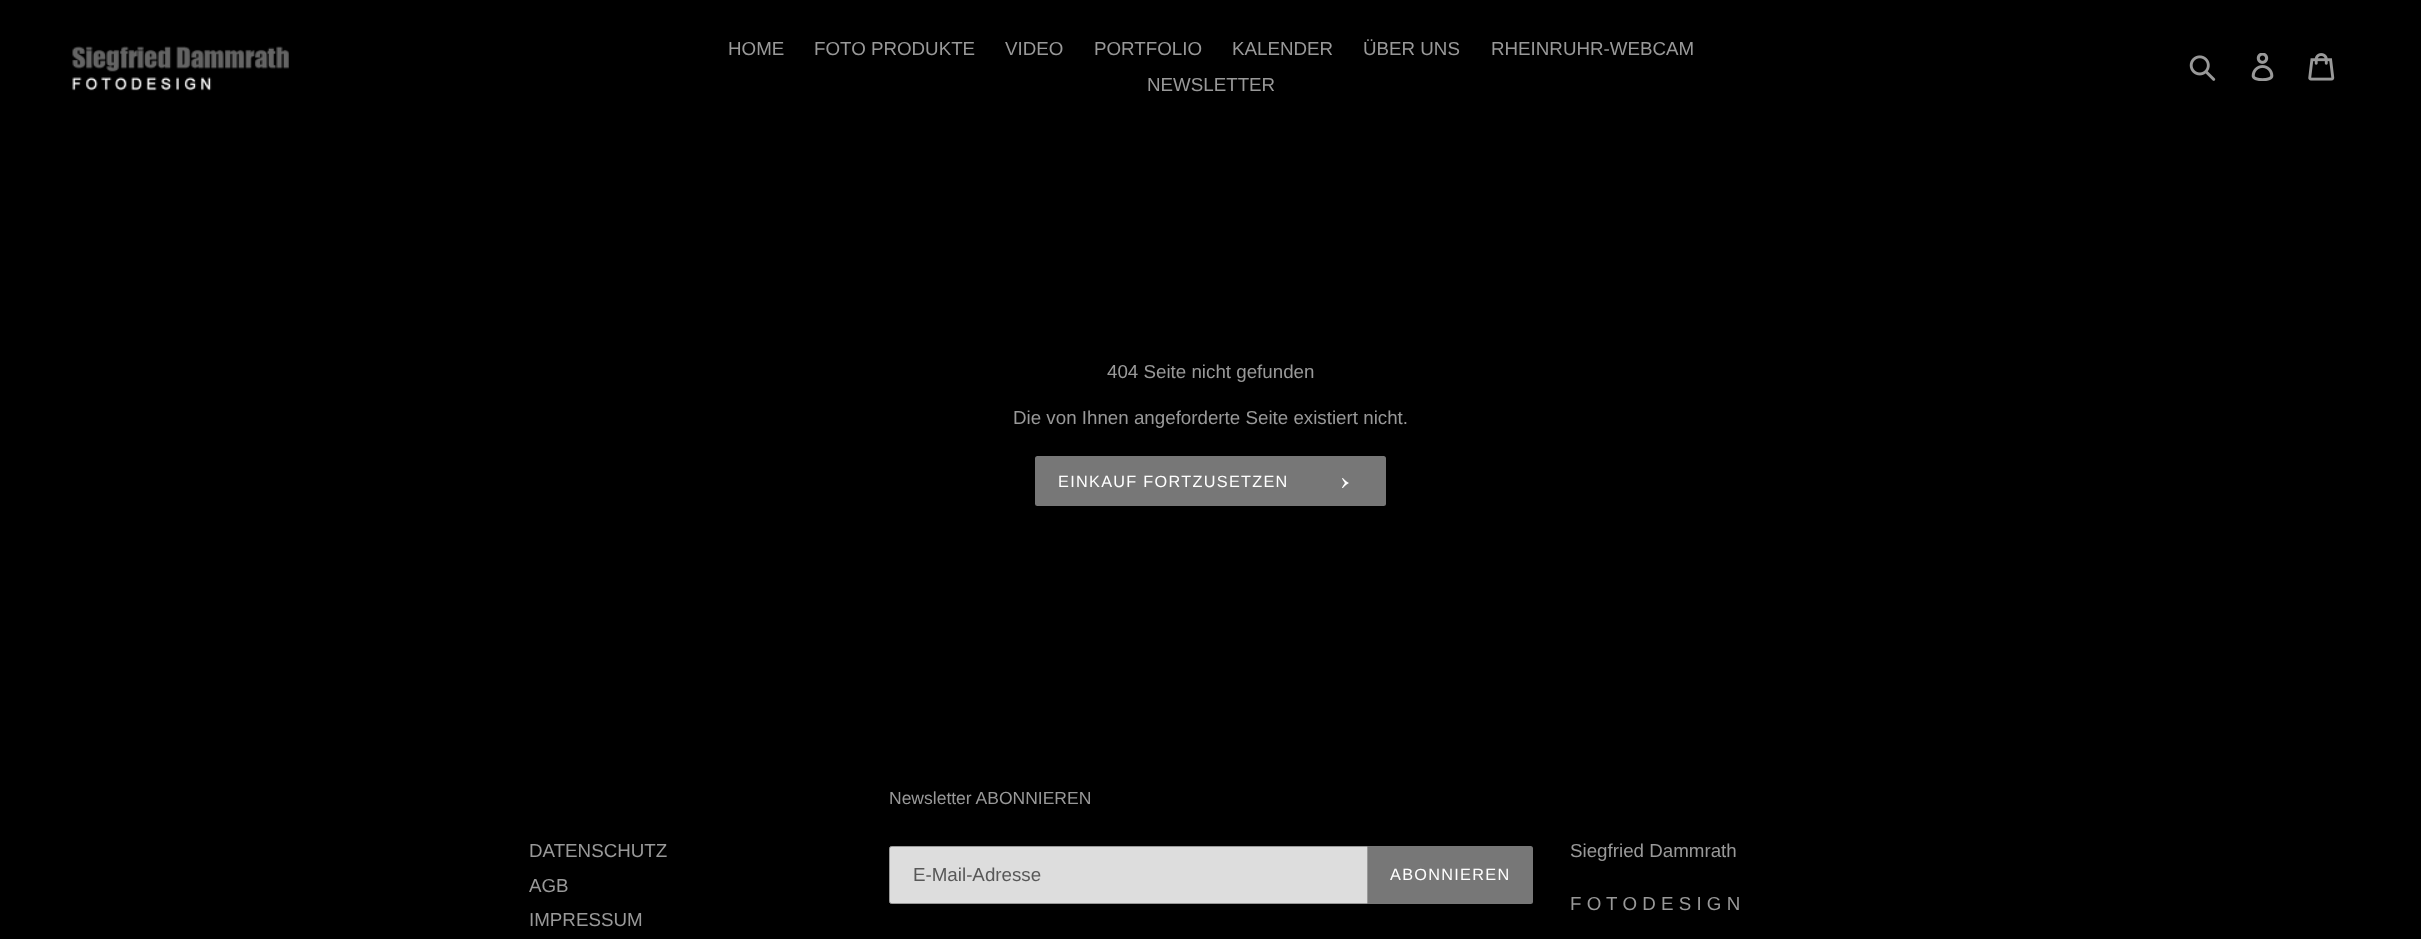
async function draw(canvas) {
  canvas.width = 2421;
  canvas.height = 939;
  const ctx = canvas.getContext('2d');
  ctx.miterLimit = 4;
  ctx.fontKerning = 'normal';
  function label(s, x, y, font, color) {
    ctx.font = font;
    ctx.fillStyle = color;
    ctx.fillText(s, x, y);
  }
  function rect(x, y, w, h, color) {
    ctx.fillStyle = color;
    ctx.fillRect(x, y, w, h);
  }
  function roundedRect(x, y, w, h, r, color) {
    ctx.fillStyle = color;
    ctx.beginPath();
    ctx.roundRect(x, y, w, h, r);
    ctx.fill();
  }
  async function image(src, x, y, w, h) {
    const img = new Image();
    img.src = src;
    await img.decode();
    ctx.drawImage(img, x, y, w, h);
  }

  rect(0, 0, 2421, 939, '#000');
  await image('assets/img1.png', 72, 46, 217, 45);
  label('HOME', 728, 55, '18.75px Liberation Sans', '#999');
  label('FOTO PRODUKTE', 814, 55, '18.75px Liberation Sans', '#999');
  label('VIDEO', 1005, 55, '18.75px Liberation Sans', '#999');
  label('PORTFOLIO', 1094, 55, '18.75px Liberation Sans', '#999');
  label('KALENDER', 1232, 55, '18.75px Liberation Sans', '#999');
  label('ÜBER UNS', 1363, 55, '18.75px Liberation Sans', '#999');
  label('RHEINRUHR-WEBCAM', 1491, 55, '18.75px Liberation Sans', '#999');
  label('NEWSLETTER', 1147, 91, '18.75px Liberation Sans', '#999');
  await image('assets/img2.png', 2189, 55, 27, 26);
  await image('assets/img3.png', 2251, 53, 23, 28);
  await image('assets/img4.png', 2308, 53, 27, 28);
  label('404 Seite nicht gefunden', 1107, 378, '18.75px Liberation Sans', '#999');
  label('Die von Ihnen angeforderte Seite existiert nicht.', 1013, 424, '18.75px Liberation Sans', '#999');
  roundedRect(1035, 456, 351, 50, 2.5, '#777');
  ctx.letterSpacing = '1.3px';
  label('EINKAUF FORTZUSETZEN', 1058, 487, '16.25px Liberation Sans', '#fff');
  await image('assets/img5.png', 1342, 478, 7, 10);
  ctx.letterSpacing = '0px';
  label('DATENSCHUTZ', 529, 857, '18.75px Liberation Sans', '#999');
  label('AGB', 529, 892, '18.75px Liberation Sans', '#999');
  label('IMPRESSUM', 529, 926, '18.75px Liberation Sans', '#999');
  label('Newsletter ABONNIEREN', 889, 804, '17.5px Liberation Sans', '#999');
  ctx.fillStyle = '#ddd';
  ctx.beginPath();
  ctx.roundRect(889.5, 846.5, 478, 57, [2, 0, 0, 2]);
  ctx.fill();
  ctx.strokeStyle = '#999';
  ctx.stroke();
  label('E-Mail-Adresse', 913, 881, '18.75px Liberation Sans', '#585858');
  ctx.fillStyle = '#777';
  ctx.beginPath();
  ctx.roundRect(1368, 846, 165, 58, [0, 2.5, 2.5, 0]);
  ctx.fill();
  ctx.letterSpacing = '1.3px';
  label('ABONNIEREN', 1390, 880, '16.25px Liberation Sans', '#fff');
  ctx.letterSpacing = '0px';
  label('Siegfried Dammrath', 1570, 857, '18.75px Liberation Sans', '#999');
  label('F O T O D E S I G N', 1570, 910, '18.75px Liberation Sans', '#999');
}

draw(document.querySelector('canvas'));
